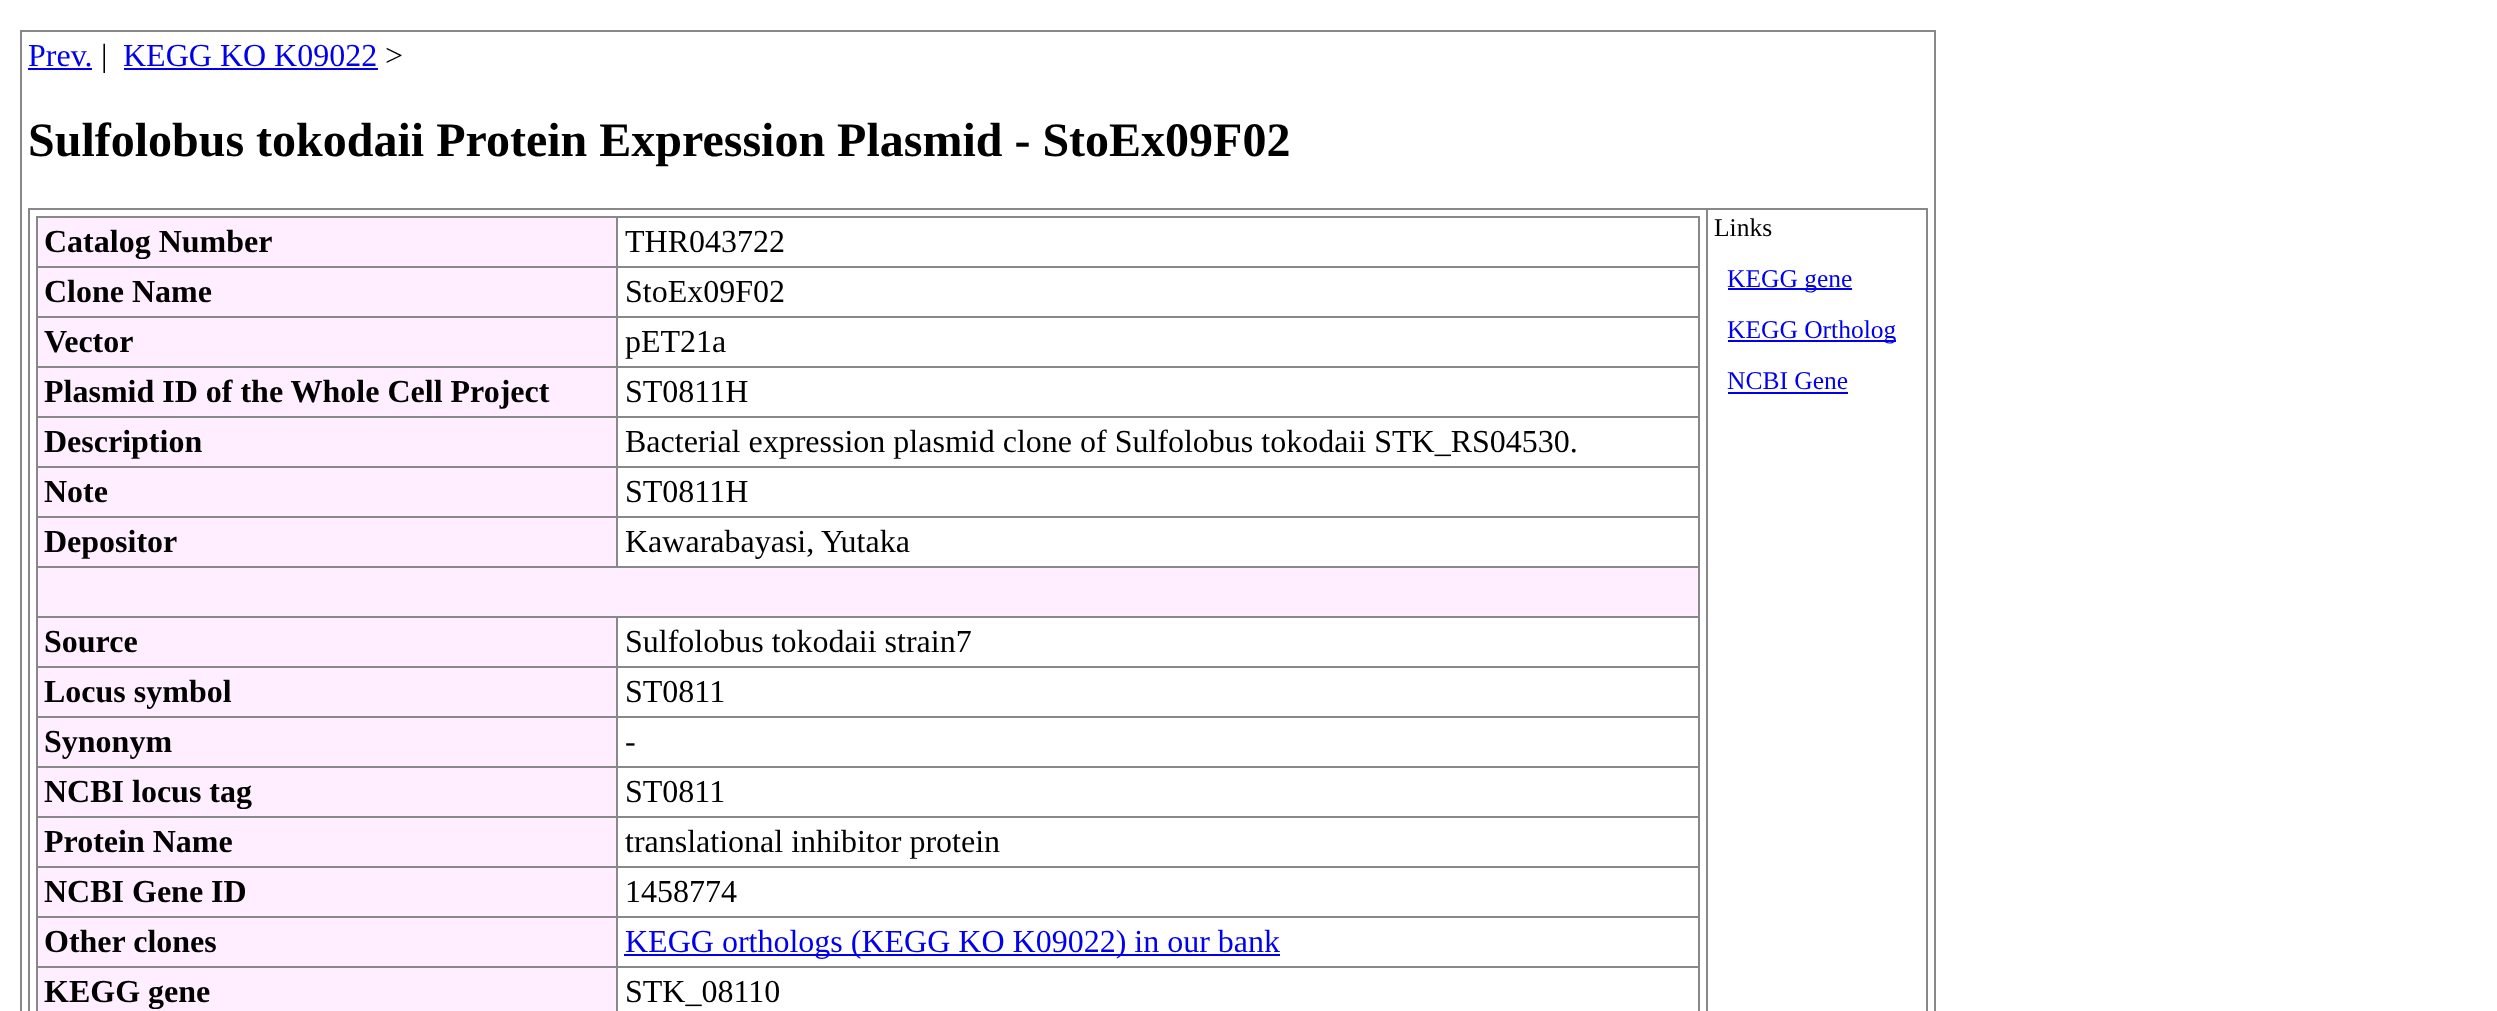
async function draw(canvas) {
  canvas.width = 2497;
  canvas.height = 1011;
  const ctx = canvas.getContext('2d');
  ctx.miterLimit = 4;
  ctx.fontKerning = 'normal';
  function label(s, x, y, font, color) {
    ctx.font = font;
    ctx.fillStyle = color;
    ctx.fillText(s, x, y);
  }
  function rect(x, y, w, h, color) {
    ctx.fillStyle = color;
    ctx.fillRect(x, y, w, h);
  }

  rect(0, 0, 2497, 1011, '#fff');
  rect(20, 30, 1916, 2, '#888');
  rect(1934, 30, 2, 981, '#888');
  rect(20, 30, 2, 981, '#888');
  label('Prev.', 28, 66, '32px Liberation Serif', '#00e');
  rect(28, 68, 64, 2, '#00e');
  label('|', 101, 66, '32px Liberation Serif', '#000');
  label('KEGG KO K09022', 123, 66, '32px Liberation Serif', '#00e');
  rect(124, 68, 254, 2, '#00e');
  label('>', 385, 66, '32px Liberation Serif', '#000');
  label('Sulfolobus tokodaii Protein Expression Plasmid - StoEx09F02', 28, 156, 'bold 48px Liberation Serif', '#000');
  rect(28, 208, 1900, 2, '#888');
  rect(1926, 208, 2, 803, '#888');
  rect(28, 208, 2, 803, '#888');
  rect(36, 216, 1664, 2, '#888');
  rect(1698, 216, 2, 795, '#888');
  rect(36, 216, 2, 795, '#888');
  rect(38, 218, 578, 48, '#fef');
  label('Catalog Number', 44, 252, 'bold 32px Liberation Serif', '#000');
  rect(616, 266, 1084, 2, '#888');
  rect(616, 316, 1084, 2, '#888');
  rect(616, 366, 1084, 2, '#888');
  rect(616, 416, 1084, 2, '#888');
  rect(616, 466, 1084, 2, '#888');
  rect(616, 516, 1084, 2, '#888');
  rect(36, 566, 1664, 2, '#888');
  rect(616, 516, 2, 52, '#888');
  rect(36, 516, 582, 2, '#888');
  rect(616, 466, 2, 52, '#888');
  rect(36, 466, 582, 2, '#888');
  rect(616, 416, 2, 52, '#888');
  rect(36, 416, 582, 2, '#888');
  rect(616, 366, 2, 52, '#888');
  rect(36, 366, 582, 2, '#888');
  rect(616, 316, 2, 52, '#888');
  rect(36, 316, 582, 2, '#888');
  rect(616, 266, 2, 52, '#888');
  rect(36, 266, 582, 2, '#888');
  rect(616, 216, 2, 52, '#888');
  label('THR043722', 625, 252, '32px Liberation Serif', '#000');
  rect(38, 268, 578, 48, '#fef');
  label('Clone Name', 44, 302, 'bold 32px Liberation Serif', '#000');
  label('StoEx09F02', 625, 302, '32px Liberation Serif', '#000');
  rect(38, 318, 578, 48, '#fef');
  label('Vector', 44, 352, 'bold 32px Liberation Serif', '#000');
  label('pET21a', 625, 352, '32px Liberation Serif', '#000');
  rect(38, 368, 578, 48, '#fef');
  label('Plasmid ID of the Whole Cell Project', 44, 402, 'bold 32px Liberation Serif', '#000');
  label('ST0811H', 625, 402, '32px Liberation Serif', '#000');
  rect(38, 418, 578, 48, '#fef');
  label('Description', 44, 452, 'bold 32px Liberation Serif', '#000');
  label('Bacterial expression plasmid clone of Sulfolobus tokodaii STK_RS04530.', 625, 452, '32px Liberation Serif', '#000');
  rect(38, 468, 578, 48, '#fef');
  label('Note', 44, 502, 'bold 32px Liberation Serif', '#000');
  label('ST0811H', 625, 502, '32px Liberation Serif', '#000');
  rect(38, 518, 578, 48, '#fef');
  label('Depositor', 44, 552, 'bold 32px Liberation Serif', '#000');
  label('Kawarabayasi, Yutaka', 625, 552, '32px Liberation Serif', '#000');
  rect(38, 568, 1660, 48, '#fef');
  rect(38, 618, 578, 48, '#fef');
  rect(616, 616, 1084, 2, '#888');
  rect(616, 666, 1084, 2, '#888');
  rect(616, 716, 1084, 2, '#888');
  rect(616, 766, 1084, 2, '#888');
  rect(616, 816, 1084, 2, '#888');
  rect(616, 866, 1084, 2, '#888');
  rect(616, 916, 1084, 2, '#888');
  rect(616, 966, 1084, 2, '#888');
  rect(616, 966, 2, 45, '#888');
  rect(36, 966, 582, 2, '#888');
  rect(616, 916, 2, 52, '#888');
  rect(36, 916, 582, 2, '#888');
  rect(616, 866, 2, 52, '#888');
  rect(36, 866, 582, 2, '#888');
  rect(616, 816, 2, 52, '#888');
  rect(36, 816, 582, 2, '#888');
  rect(616, 766, 2, 52, '#888');
  rect(36, 766, 582, 2, '#888');
  rect(616, 716, 2, 52, '#888');
  rect(36, 716, 582, 2, '#888');
  rect(616, 666, 2, 52, '#888');
  rect(36, 666, 582, 2, '#888');
  rect(616, 616, 2, 52, '#888');
  rect(36, 616, 582, 2, '#888');
  label('Source', 44, 652, 'bold 32px Liberation Serif', '#000');
  label('Sulfolobus tokodaii strain7', 625, 652, '32px Liberation Serif', '#000');
  rect(38, 668, 578, 48, '#fef');
  label('Locus symbol', 44, 702, 'bold 32px Liberation Serif', '#000');
  label('ST0811', 625, 702, '32px Liberation Serif', '#000');
  rect(38, 718, 578, 48, '#fef');
  label('Synonym', 44, 752, 'bold 32px Liberation Serif', '#000');
  label('-', 625, 752, '32px Liberation Serif', '#000');
  rect(38, 768, 578, 48, '#fef');
  label('NCBI locus tag', 44, 802, 'bold 32px Liberation Serif', '#000');
  label('ST0811', 625, 802, '32px Liberation Serif', '#000');
  rect(38, 818, 578, 48, '#fef');
  label('Protein Name', 44, 852, 'bold 32px Liberation Serif', '#000');
  label('translational inhibitor protein', 625, 852, '32px Liberation Serif', '#000');
  rect(38, 868, 578, 48, '#fef');
  label('NCBI Gene ID', 44, 902, 'bold 32px Liberation Serif', '#000');
  label('1458774', 625, 902, '32px Liberation Serif', '#000');
  rect(38, 918, 578, 48, '#fef');
  label('Other clones', 44, 952, 'bold 32px Liberation Serif', '#000');
  rect(624, 954, 656, 2, '#00e');
  label('KEGG orthologs (KEGG KO K09022) in our bank', 625, 952, '32px Liberation Serif', '#00e');
  rect(38, 968, 578, 43, '#fef');
  label('KEGG gene', 44, 1002, 'bold 32px Liberation Serif', '#000');
  label('STK_08110', 625, 1002, '32px Liberation Serif', '#000');
  rect(1706, 208, 2, 803, '#888');
  label('Links', 1714, 236, '25.5px Liberation Serif', '#000');
  rect(1728, 288, 124, 2, '#00e');
  label('KEGG gene', 1727, 287, '25.5px Liberation Serif', '#00e');
  rect(1728, 340, 168, 2, '#00e');
  label('KEGG Ortholog', 1727, 338, '25.5px Liberation Serif', '#00e');
  label('NCBI Gene', 1727, 389, '25.5px Liberation Serif', '#00e');
  rect(1728, 392, 120, 2, '#00e');
}

draw(document.querySelector('canvas'));
